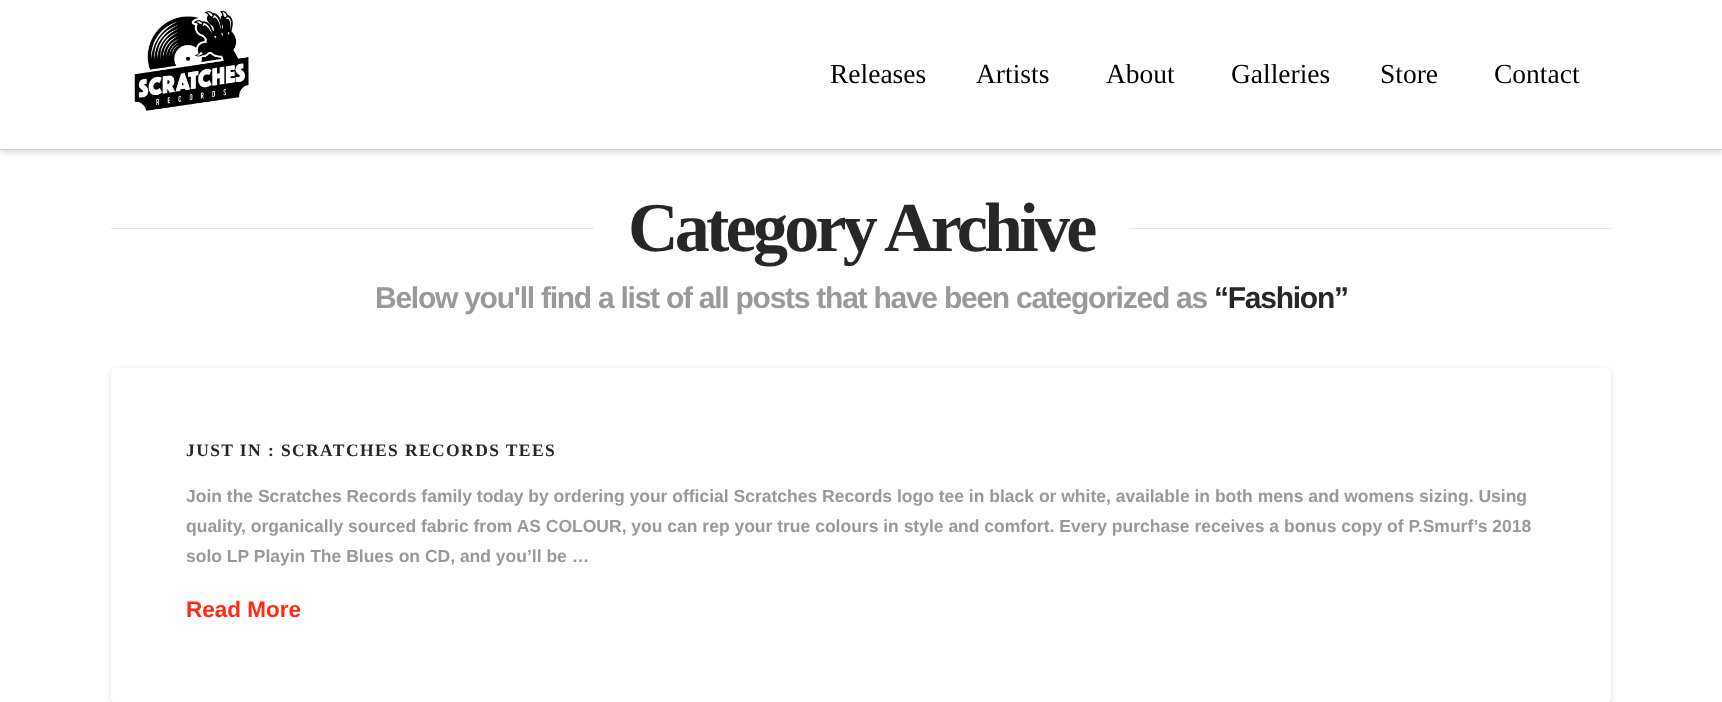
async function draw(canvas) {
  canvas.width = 1722;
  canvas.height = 702;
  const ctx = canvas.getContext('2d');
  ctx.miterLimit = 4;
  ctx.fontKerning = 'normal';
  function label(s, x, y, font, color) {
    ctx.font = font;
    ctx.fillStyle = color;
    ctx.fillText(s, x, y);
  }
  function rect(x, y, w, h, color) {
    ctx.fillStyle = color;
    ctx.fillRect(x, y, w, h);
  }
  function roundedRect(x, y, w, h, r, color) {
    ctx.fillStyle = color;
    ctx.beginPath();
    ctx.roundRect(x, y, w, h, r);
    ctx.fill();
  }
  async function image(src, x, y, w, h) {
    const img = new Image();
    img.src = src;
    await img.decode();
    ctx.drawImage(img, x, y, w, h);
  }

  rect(0, 0, 1722, 702, '#fff');
  ctx.save();
  ctx.beginPath();
  ctx.rect(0, 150, 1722, 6);
  ctx.clip();
  ctx.fillStyle = '#00000021';
  ctx.filter = 'blur(3px)';
  ctx.beginPath();
  ctx.rect(0, 3, 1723, 150);
  ctx.fill();
  ctx.filter = 'none';
  ctx.restore();
  rect(0, 149, 1722, 1, '#ccc');
  await image('assets/img1.png', 134, 10, 115, 101);
  label('Releases', 830, 83, '27.5px Liberation Serif', '#000');
  label('Artists', 976, 83, '27.5px Liberation Serif', '#000');
  label('About', 1106, 83, '27.5px Liberation Serif', '#000');
  label('Galleries', 1231, 83, '27.5px Liberation Serif', '#000');
  label('Store', 1380, 83, '27.5px Liberation Serif', '#000');
  label('Contact', 1494, 83, '27.5px Liberation Serif', '#000');
  rect(111, 228, 483, 1, '#e6e6e6');
  ctx.letterSpacing = '-3.75px';
  label('Category Archive', 628, 251, 'bold 70px Liberation Serif', '#272727');
  rect(1129, 228, 482, 1, '#e6e6e6');
  ctx.letterSpacing = '-1.25px';
  label('Below you\'ll find a list of all posts that have been categorized as', 375, 308, 'bold 30px Liberation Sans', '#999');
  label('“Fashion”', 1214, 308, 'bold 30px Liberation Sans', '#272727');
  ctx.fillStyle = '#00000021';
  ctx.filter = 'blur(3px)';
  ctx.beginPath();
  ctx.roundRect(111, 370, 1500, 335, 5);
  ctx.fill();
  ctx.filter = 'none';
  roundedRect(111, 368, 1500, 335, 5, '#fff');
  ctx.letterSpacing = '1.4px';
  label('JUST IN : SCRATCHES RECORDS TEES', 186, 456, 'bold 17.5px Liberation Serif', '#272727');
  ctx.letterSpacing = '0px';
  label('Join the Scratches Records family today by ordering your official Scratches Records logo tee in black or white, available in both mens and womens sizing. Using', 186, 502, 'bold 17.5px Liberation Sans', '#999');
  label('quality, organically sourced fabric from AS COLOUR, you can rep your true colours in style and comfort. Every purchase receives a bonus copy of P.Smurf’s 2018', 186, 532, 'bold 17.5px Liberation Sans', '#999');
  label('solo LP Playin The Blues on CD, and you’ll be …', 186, 562, 'bold 17.5px Liberation Sans', '#999');
  label('Read More', 186, 617, 'bold 22.5px Liberation Sans', '#ff2a13');
}

draw(document.querySelector('canvas'));
